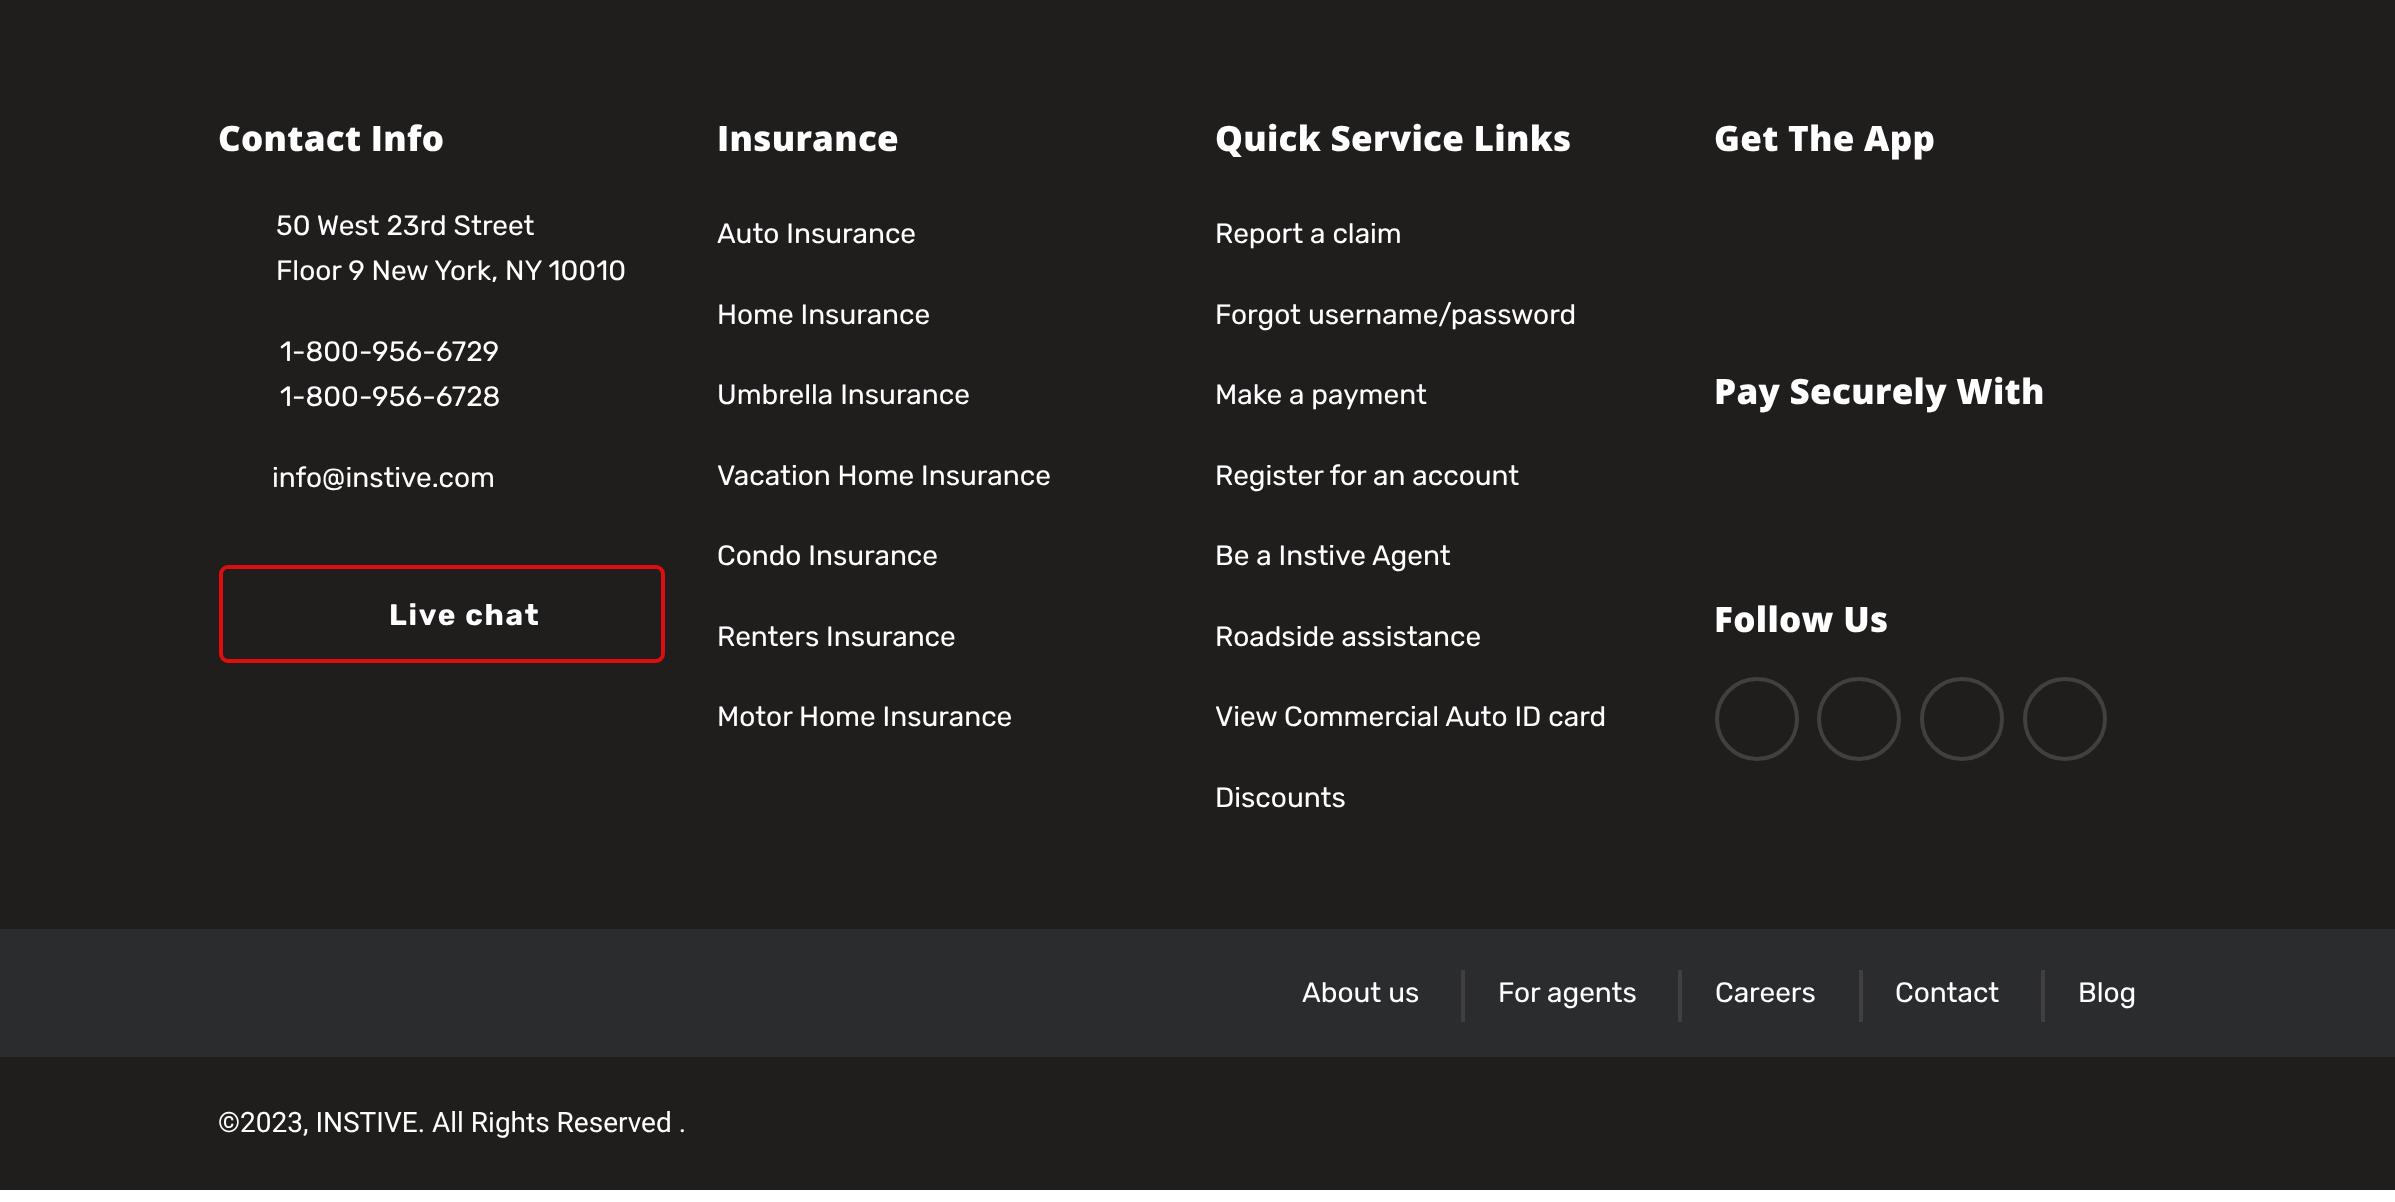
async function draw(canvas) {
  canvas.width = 2395;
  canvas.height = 1202;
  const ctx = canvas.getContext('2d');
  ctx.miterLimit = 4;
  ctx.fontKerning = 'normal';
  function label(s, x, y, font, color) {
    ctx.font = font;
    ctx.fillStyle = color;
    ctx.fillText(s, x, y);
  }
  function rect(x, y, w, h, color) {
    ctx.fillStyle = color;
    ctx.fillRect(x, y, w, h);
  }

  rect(0, 0, 2395, 1202, '#fff');
  rect(0, 0, 2395, 929, '#201d1d');
  ctx.letterSpacing = '0.3px';
  label('Contact Info', 218, 151, '800 35px Open Sans', '#fff');
  ctx.letterSpacing = '0px';
  label('50 West 23rd Street', 276, 235, '300 28px Rubik', '#fff');
  label('Floor 9 New York, NY 10010', 276, 280, '300 28px Rubik', '#fff');
  label('1-800-956-6729', 280, 361, '300 28px Rubik', '#fff');
  label('1-800-956-6728', 280, 406, '300 28px Rubik', '#fff');
  label('info@instive.com', 272, 487, '300 28px Rubik', '#fff');
  ctx.beginPath();
  ctx.roundRect(221, 567, 442, 94, 7);
  ctx.strokeStyle = '#dc0e0e';
  ctx.lineWidth = 4;
  ctx.stroke();
  ctx.letterSpacing = '1.75px';
  label('Live chat', 389, 625, 'bold 29.75px Rubik', '#fff');
  ctx.letterSpacing = '0.3px';
  label('Insurance', 717, 151, '800 35px Open Sans', '#fff');
  ctx.letterSpacing = '0px';
  label('Auto Insurance', 717, 243, '300 28px Rubik', '#fff');
  label('Home Insurance', 717, 324, '300 28px Rubik', '#fff');
  label('Umbrella Insurance', 717, 404, '300 28px Rubik', '#fff');
  label('Vacation Home Insurance', 717, 485, '300 28px Rubik', '#fff');
  label('Condo Insurance', 717, 565, '300 28px Rubik', '#fff');
  label('Renters Insurance', 717, 646, '300 28px Rubik', '#fff');
  label('Motor Home Insurance', 717, 726, '300 28px Rubik', '#fff');
  ctx.letterSpacing = '0.3px';
  label('Quick Service Links', 1215, 151, '800 35px Open Sans', '#fff');
  ctx.letterSpacing = '0px';
  label('Report a claim', 1215, 243, '300 28px Rubik', '#fff');
  label('Forgot username/password', 1215, 324, '300 28px Rubik', '#fff');
  label('Make a payment', 1215, 404, '300 28px Rubik', '#fff');
  label('Register for an account', 1215, 485, '300 28px Rubik', '#fff');
  label('Be a Instive Agent', 1215, 565, '300 28px Rubik', '#fff');
  label('Roadside assistance', 1215, 646, '300 28px Rubik', '#fff');
  label('View Commercial Auto ID card', 1215, 726, '300 28px Rubik', '#fff');
  label('Discounts', 1215, 807, '300 28px Rubik', '#fff');
  ctx.letterSpacing = '0.3px';
  label('Get The App', 1714, 151, '800 35px Open Sans', '#fff');
  label('Pay Securely With', 1714, 404, '800 35px Open Sans', '#fff');
  label('Follow Us', 1714, 632, '800 35px Open Sans', '#fff');
  ctx.beginPath();
  ctx.arc(1757, 719, 40, 0, 2 * Math.PI);
  ctx.strokeStyle = '#413f3f';
  ctx.stroke();
  ctx.beginPath();
  ctx.arc(1859, 719, 40, 0, 2 * Math.PI);
  ctx.stroke();
  ctx.beginPath();
  ctx.arc(1962, 719, 40, 0, 2 * Math.PI);
  ctx.stroke();
  ctx.beginPath();
  ctx.arc(2065, 719, 40, 0, 2 * Math.PI);
  ctx.stroke();
  rect(0, 929, 2395, 128, '#2a2c2e');
  ctx.letterSpacing = '0px';
  label('About us', 1302, 1002, '300 28px Rubik', '#fff');
  rect(1461, 970, 4, 52, '#413f3f');
  label('For agents', 1498, 1002, '300 28px Rubik', '#fff');
  rect(1678, 970, 4, 52, '#413f3f');
  label('Careers', 1715, 1002, '300 28px Rubik', '#fff');
  rect(1859, 970, 4, 52, '#413f3f');
  label('Contact', 1895, 1002, '300 28px Rubik', '#fff');
  rect(2041, 970, 4, 52, '#413f3f');
  label('Blog', 2078, 1002, '300 28px Rubik', '#fff');
  rect(0, 1057, 2395, 133, '#201d1d');
  label('©2023, INSTIVE. All Rights Reserved .', 218, 1132, '28px Roboto', '#fff');
}

draw(document.querySelector('canvas'));
